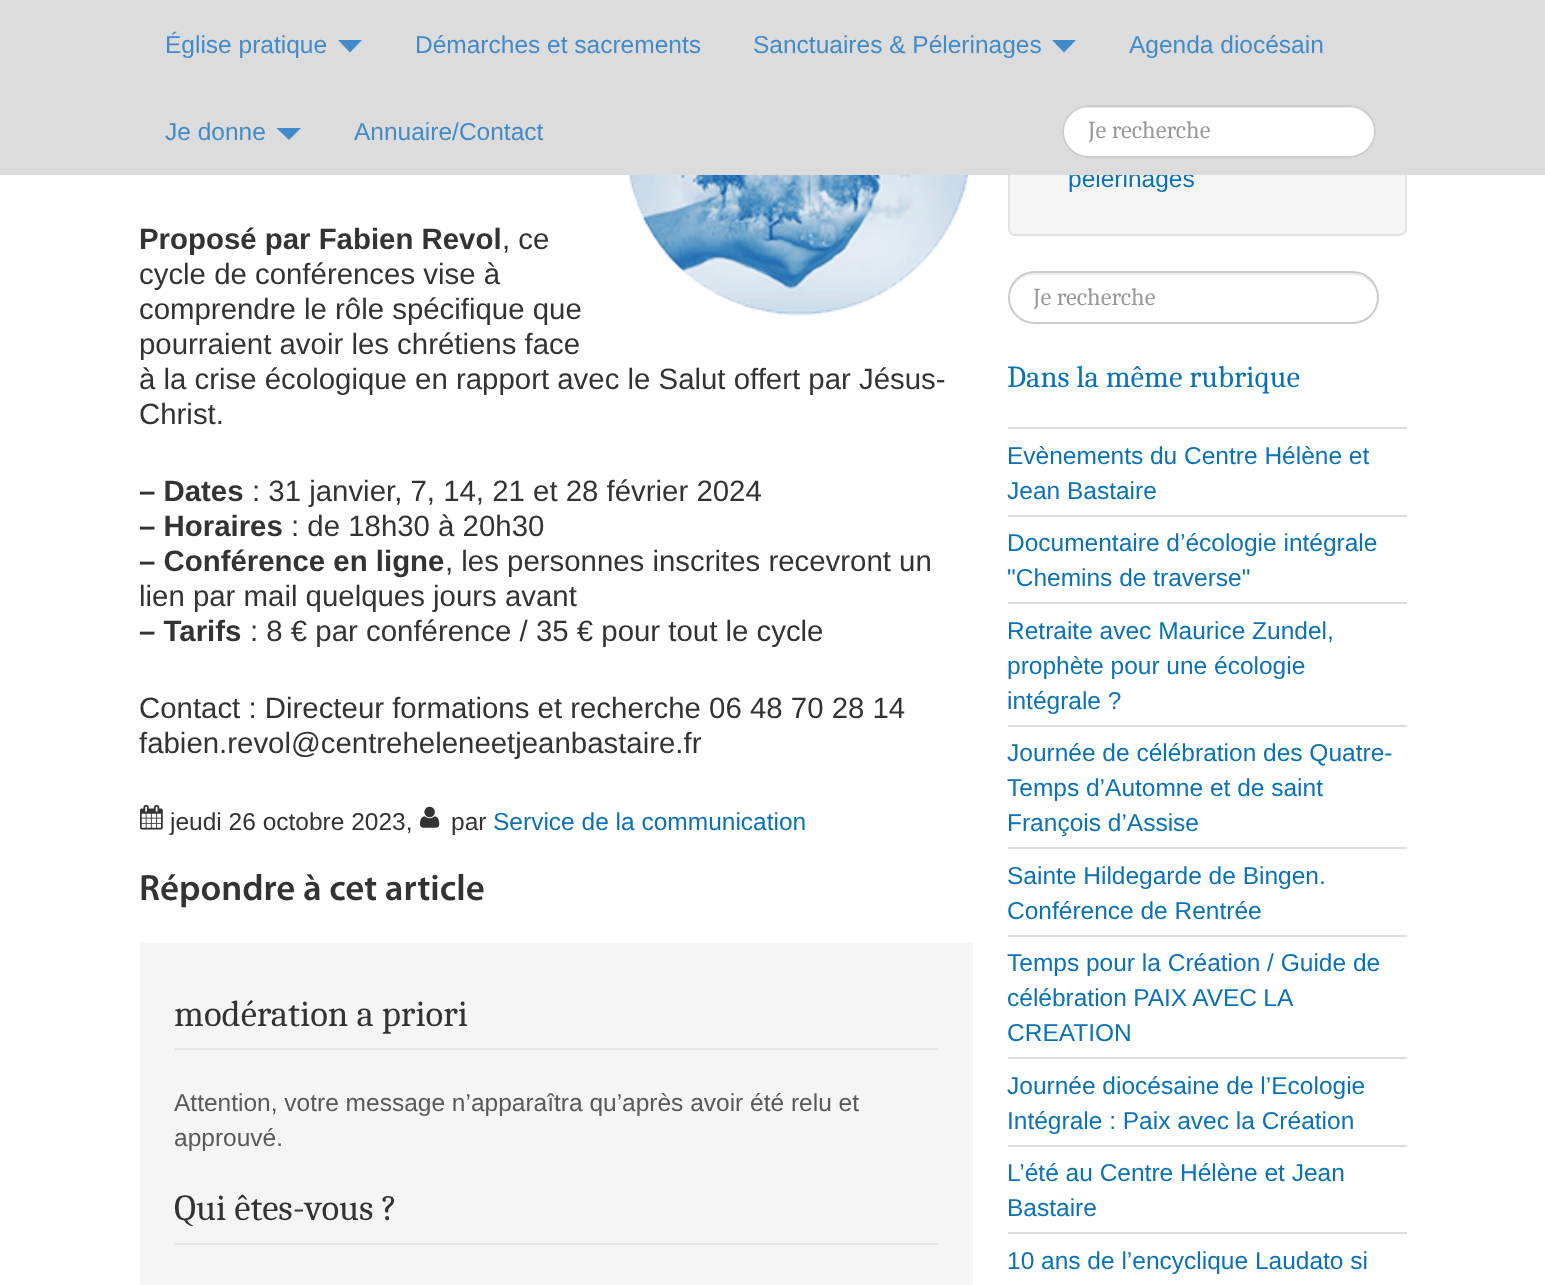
async function draw(canvas) {
  canvas.width = 1545;
  canvas.height = 1285;
  const ctx = canvas.getContext('2d');
  ctx.miterLimit = 4;
  ctx.fontKerning = 'normal';
  function label(s, x, y, font, color) {
    ctx.font = font;
    ctx.fillStyle = color;
    ctx.fillText(s, x, y);
  }
  function rect(x, y, w, h, color) {
    ctx.fillStyle = color;
    ctx.fillRect(x, y, w, h);
  }
  function roundedRect(x, y, w, h, r, color) {
    ctx.fillStyle = color;
    ctx.beginPath();
    ctx.roundRect(x, y, w, h, r);
    ctx.fill();
  }
  async function image(src, x, y, w, h) {
    const img = new Image();
    img.src = src;
    await img.decode();
    ctx.drawImage(img, x, y, w, h);
  }
  let path;

  rect(0, 0, 1545, 1285, '#fff');
  ctx.fillStyle = '#f5f5f5';
  ctx.beginPath();
  ctx.roundRect(1009, -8, 397, 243, 6);
  ctx.fill();
  ctx.strokeStyle = '#e3e3e3';
  ctx.lineWidth = 2;
  ctx.stroke();
  label('pèlerinages', 1068, 187, '24.5px Liberation Sans', '#0b72b5');
  rect(0, 0, 1545, 175, '#dcdcdc');
  label('Église pratique', 165, 53, '24.5px Liberation Sans', '#428bca');
  path = new Path2D('M338 40H362L350 52.5Z');
  ctx.fill(path);
  label('Démarches et sacrements', 415, 53, '24.5px Liberation Sans', '#428bca');
  label('Sanctuaires & Pélerinages', 753, 53, '24.5px Liberation Sans', '#428bca');
  path = new Path2D('M1052 40H1076L1064 52.5Z');
  ctx.fill(path);
  label('Agenda diocésain', 1129, 53, '24.5px Liberation Sans', '#428bca');
  label('Je donne', 165, 140, '24.5px Liberation Sans', '#428bca');
  path = new Path2D('M276.5 128H301L289 140Z');
  ctx.fill(path);
  label('Annuaire/Contact', 354, 140, '24.5px Liberation Sans', '#428bca');
  roundedRect(1062, 105, 314, 53, 26.5, '#fff');
  ctx.fillStyle = '#ececec';
  path = new Path2D('M1088 108H1349C1363 108 1374 119 1374 132C1374 118 1363 107 1350 107H1088C1075 107 1064 118 1064 132C1064 119 1075 108 1088 108Z');
  ctx.fill(path);
  ctx.beginPath();
  ctx.roundRect(1063, 106, 312, 51, 25.5);
  ctx.strokeStyle = '#ccc';
  ctx.stroke();
  ctx.save();
  ctx.beginPath();
  ctx.rect(1089, 116, 253, 29);
  ctx.clip();
  label('Je recherche', 1088, 138, '24.5px Caladea', '#999');
  ctx.restore();
  await image('assets/img1.png', 628, 175, 342, 141);
  label('Proposé par Fabien Revol', 139, 249, 'bold 29.4px Liberation Sans', '#333');
  label(', ce', 502, 249, '29.4px Liberation Sans', '#333');
  label('cycle de conférences vise à', 139, 284, '29.4px Liberation Sans', '#333');
  label('comprendre le rôle spécifique que', 139, 319, '29.4px Liberation Sans', '#333');
  label('pourraient avoir les chrétiens face', 139, 354, '29.4px Liberation Sans', '#333');
  label('à la crise écologique en rapport avec le Salut offert par Jésus-', 139, 389, '29.4px Liberation Sans', '#333');
  label('Christ.', 139, 424, '29.4px Liberation Sans', '#333');
  label('– Dates', 139, 501, 'bold 29.4px Liberation Sans', '#333');
  label(': 31 janvier, 7, 14, 21 et 28 février 2024', 252, 501, '29.4px Liberation Sans', '#333');
  label('– Horaires', 139, 536, 'bold 29.4px Liberation Sans', '#333');
  label(': de 18h30 à 20h30', 291, 536, '29.4px Liberation Sans', '#333');
  label('– Conférence en ligne', 139, 571, 'bold 29.4px Liberation Sans', '#333');
  label(', les personnes inscrites recevront un', 445, 571, '29.4px Liberation Sans', '#333');
  label('lien par mail quelques jours avant', 139, 606, '29.4px Liberation Sans', '#333');
  label('– Tarifs', 139, 641, 'bold 29.4px Liberation Sans', '#333');
  label(': 8 € par conférence / 35 € pour tout le cycle', 250, 641, '29.4px Liberation Sans', '#333');
  label('Contact : Directeur formations et recherche 06 48 70 28 14', 139, 718, '29.4px Liberation Sans', '#333');
  label('fabien.revol@centreheleneetjeanbastaire.fr', 139, 753, '29.4px Liberation Sans', '#333');
  await image('assets/img2.png', 140, 805, 23, 25);
  label('jeudi 26 octobre 2023,', 170, 830, '24.5px Liberation Sans', '#333');
  await image('assets/img3.png', 420, 806, 20, 22);
  label('par', 451, 830, '24.5px Liberation Sans', '#333');
  label('Service de la communication', 493, 830, '24.5px Liberation Sans', '#0b72b5');
  label('Répondre à cet article', 139, 900, '600 36.75px Myriad', '#333');
  rect(140, 943, 833, 342, '#f5f5f5');
  rect(175, 1048, 763, 2, '#e5e5e5');
  label('modération a priori', 174, 1026, '36.75px Caladea', '#333');
  label('Attention, votre message n’apparaîtra qu’après avoir été relu et', 174, 1111, '24.5px Liberation Sans', '#595959');
  label('approuvé.', 174, 1146, '24.5px Liberation Sans', '#595959');
  rect(175, 1243, 763, 2, '#e5e5e5');
  label('Qui êtes-vous ?', 174, 1220, '36.75px Caladea', '#333');
  ctx.fillStyle = '#ececec';
  path = new Path2D('M1034 275H1353C1366 275 1377 286 1377 298C1377 285 1366 273 1352 273H1034C1021 273 1010 285 1010 298C1010 286 1021 275 1034 275Z');
  ctx.fill(path);
  ctx.beginPath();
  ctx.roundRect(1009, 272, 369, 51, 25.5);
  ctx.stroke();
  ctx.save();
  ctx.beginPath();
  ctx.rect(1034, 282, 312, 30);
  ctx.clip();
  label('Je recherche', 1033, 305, '24.5px Caladea', '#999');
  ctx.restore();
  label('Dans la même rubrique', 1007, 387, '30.6px Caladea', '#0b72b5');
  rect(1008, 427, 399, 2, '#ddd');
  label('Evènements du Centre Hélène et', 1007, 464, '24.5px Liberation Sans', '#0b72b5');
  label('Jean Bastaire', 1007, 499, '24.5px Liberation Sans', '#0b72b5');
  rect(1008, 515, 399, 2, '#ddd');
  label('Documentaire d’écologie intégrale', 1007, 551, '24.5px Liberation Sans', '#0b72b5');
  label('"Chemins de traverse"', 1007, 586, '24.5px Liberation Sans', '#0b72b5');
  rect(1008, 602, 399, 2, '#ddd');
  label('Retraite avec Maurice Zundel,', 1007, 639, '24.5px Liberation Sans', '#0b72b5');
  label('prophète pour une écologie', 1007, 674, '24.5px Liberation Sans', '#0b72b5');
  label('intégrale ?', 1007, 709, '24.5px Liberation Sans', '#0b72b5');
  rect(1008, 725, 399, 2, '#ddd');
  label('Journée de célébration des Quatre-', 1007, 761, '24.5px Liberation Sans', '#0b72b5');
  label('Temps d’Automne et de saint', 1007, 796, '24.5px Liberation Sans', '#0b72b5');
  label('François d’Assise', 1007, 831, '24.5px Liberation Sans', '#0b72b5');
  rect(1008, 847, 399, 2, '#ddd');
  label('Sainte Hildegarde de Bingen.', 1007, 884, '24.5px Liberation Sans', '#0b72b5');
  label('Conférence de Rentrée', 1007, 919, '24.5px Liberation Sans', '#0b72b5');
  rect(1008, 935, 399, 2, '#ddd');
  label('Temps pour la Création / Guide de', 1007, 971, '24.5px Liberation Sans', '#0b72b5');
  ctx.wordSpacing = '-0.5px';
  label('célébration PAIX AVEC LA', 1007, 1006, '24.5px Liberation Sans', '#0b72b5');
  ctx.wordSpacing = '0px';
  label('CREATION', 1007, 1041, '24.5px Liberation Sans', '#0b72b5');
  rect(1008, 1057, 399, 2, '#ddd');
  label('Journée diocésaine de l’Ecologie', 1007, 1094, '24.5px Liberation Sans', '#0b72b5');
  label('Intégrale : Paix avec la Création', 1007, 1129, '24.5px Liberation Sans', '#0b72b5');
  rect(1008, 1145, 399, 2, '#ddd');
  label('L’été au Centre Hélène et Jean', 1007, 1181, '24.5px Liberation Sans', '#0b72b5');
  label('Bastaire', 1007, 1216, '24.5px Liberation Sans', '#0b72b5');
  rect(1008, 1232, 399, 2, '#ddd');
  label('10 ans de l’encyclique Laudato si', 1007, 1269, '24.5px Liberation Sans', '#0b72b5');
}

draw(document.querySelector('canvas'));
